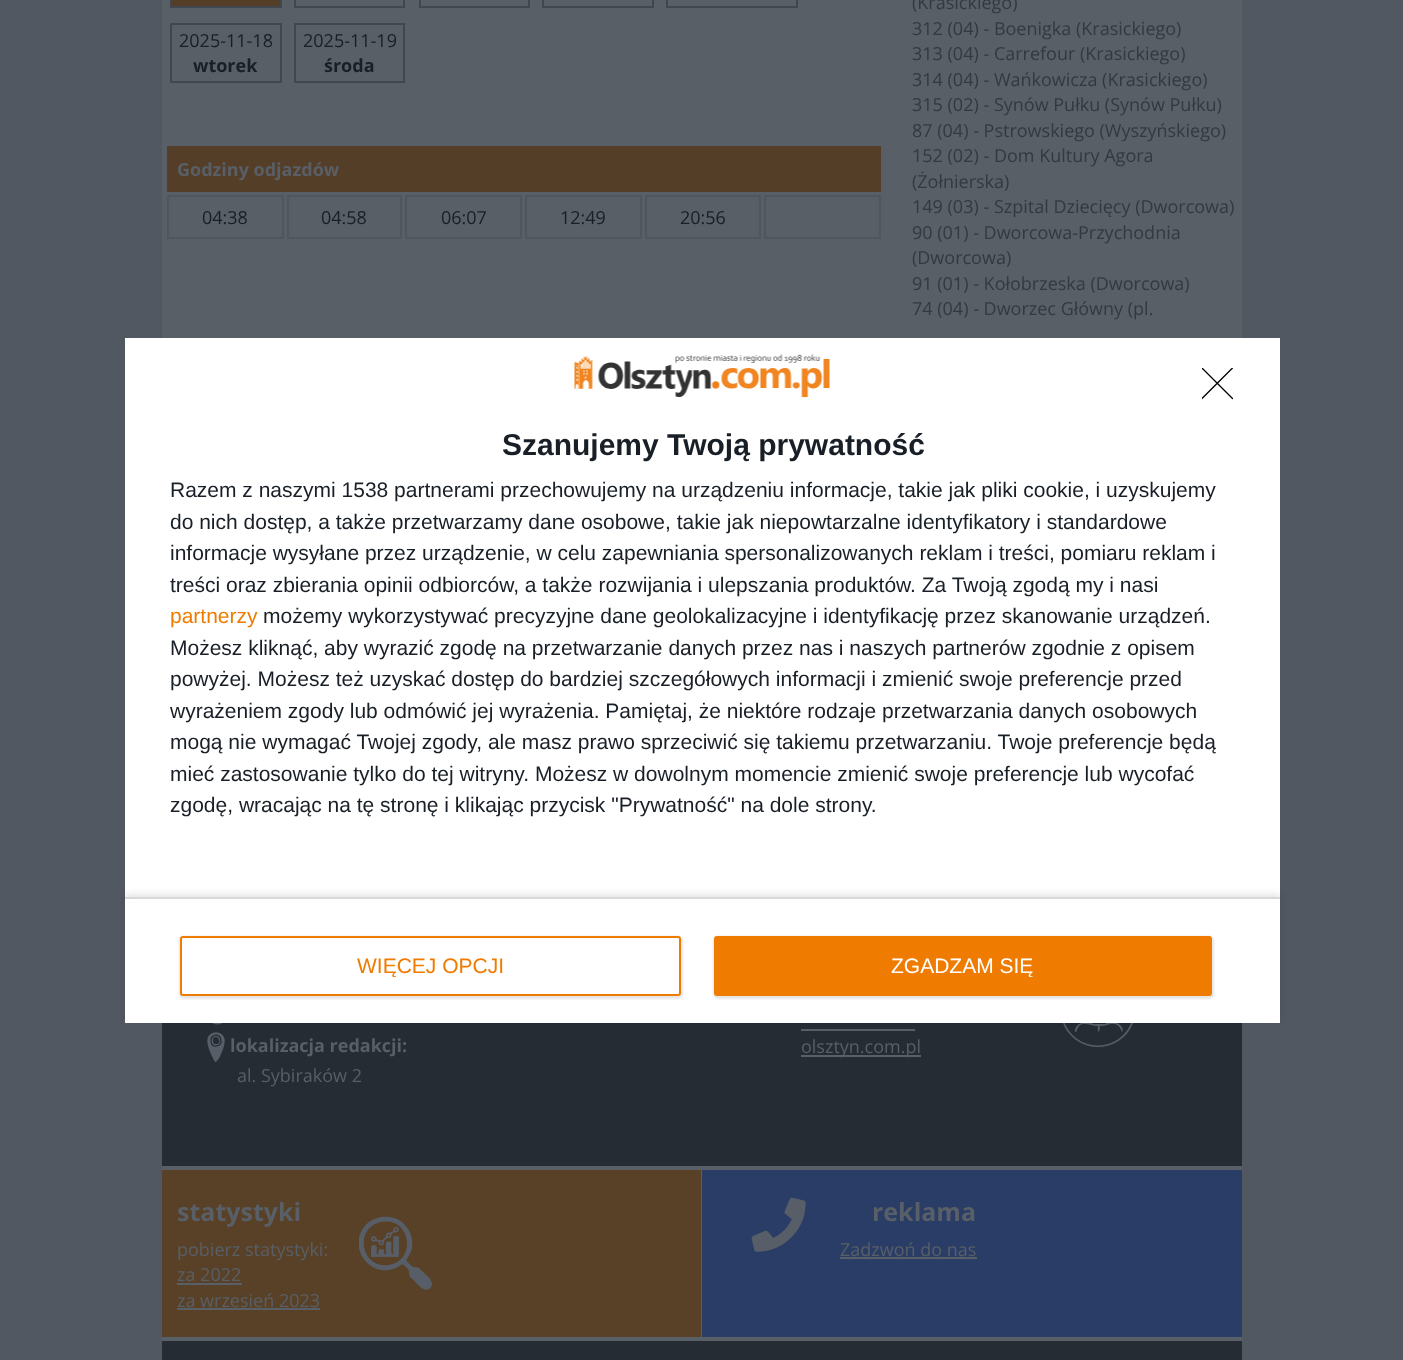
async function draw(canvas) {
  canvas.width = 1403;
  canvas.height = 1360;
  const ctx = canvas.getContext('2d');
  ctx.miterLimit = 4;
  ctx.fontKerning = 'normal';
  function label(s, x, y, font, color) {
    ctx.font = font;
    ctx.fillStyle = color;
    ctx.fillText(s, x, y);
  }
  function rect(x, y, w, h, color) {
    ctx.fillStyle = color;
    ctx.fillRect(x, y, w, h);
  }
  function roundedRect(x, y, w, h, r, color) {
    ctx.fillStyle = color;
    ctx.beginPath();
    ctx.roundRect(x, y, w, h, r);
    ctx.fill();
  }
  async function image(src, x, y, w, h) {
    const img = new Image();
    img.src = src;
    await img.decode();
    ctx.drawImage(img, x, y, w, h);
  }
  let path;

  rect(0, 0, 1403, 1360, '#525861');
  rect(162, 0, 1080, 338, '#595f67');
  ctx.fillStyle = '#553e27';
  ctx.beginPath();
  ctx.rect(171, -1, 110, 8);
  ctx.fill();
  ctx.strokeStyle = '#41474f';
  ctx.lineWidth = 2;
  ctx.stroke();
  ctx.strokeRect(295, -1, 109, 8);
  ctx.strokeRect(420, -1, 109, 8);
  ctx.strokeRect(543, -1, 110, 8);
  ctx.strokeRect(667, -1, 130, 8);
  ctx.strokeRect(171, 24, 110, 58);
  label('2025-11-18', 179, 47, '18px Open Sans', '#191f27');
  label('wtorek', 193, 72, 'bold 18px Open Sans', '#191f27');
  ctx.strokeRect(295, 24, 109, 58);
  label('2025-11-19', 303, 47, '18px Open Sans', '#191f27');
  label('środa', 324, 72, 'bold 18px Open Sans', '#191f27');
  rect(167, 146, 714, 46, '#553e27');
  label('Godziny odjazdów', 177, 176, 'bold 18px Open Sans', '#595f67');
  ctx.strokeStyle = '#50565e';
  ctx.strokeRect(168, 196, 115, 42);
  label('04:38', 202, 224, '18px Open Sans', '#191f27');
  ctx.strokeRect(288, 196, 113, 42);
  label('04:58', 321, 224, '18px Open Sans', '#191f27');
  ctx.strokeRect(406, 196, 115, 42);
  label('06:07', 441, 224, '18px Open Sans', '#191f27');
  ctx.strokeRect(526, 196, 115, 42);
  label('12:49', 560, 224, '18px Open Sans', '#191f27');
  ctx.strokeRect(646, 196, 114, 42);
  label('20:56', 680, 224, '18px Open Sans', '#191f27');
  ctx.strokeRect(765, 196, 115, 42);
  label('(Krasickiego)', 912, 9, '18px Open Sans', '#333941');
  label('312 (04) - Boenigka (Krasickiego)', 912, 35, '18px Open Sans', '#333941');
  label('313 (04) - Carrefour (Krasickiego)', 912, 60, '18px Open Sans', '#333941');
  label('314 (04) - Wańkowicza (Krasickiego)', 912, 86, '18px Open Sans', '#333941');
  label('315 (02) - Synów Pułku (Synów Pułku)', 912, 111, '18px Open Sans', '#333941');
  label('87 (04) - Pstrowskiego (Wyszyńskiego)', 912, 137, '18px Open Sans', '#333941');
  label('152 (02) - Dom Kultury Agora', 912, 162, '18px Open Sans', '#333941');
  label('(Żołnierska)', 912, 188, '18px Open Sans', '#333941');
  label('149 (03) - Szpital Dziecięcy (Dworcowa)', 912, 213, '18px Open Sans', '#333941');
  label('90 (01) - Dworcowa-Przychodnia', 912, 239, '18px Open Sans', '#333941');
  label('(Dworcowa)', 912, 264, '18px Open Sans', '#333941');
  label('91 (01) - Kołobrzeska (Dworcowa)', 912, 290, '18px Open Sans', '#333941');
  label('74 (04) - Dworzec Główny (pl.', 912, 315, '18px Open Sans', '#333941');
  rect(125, 338, 1155, 685, '#fff');
  ctx.save();
  ctx.beginPath();
  ctx.rect(1202, 368, 31, 33);
  ctx.clip();
  path = new Path2D('M1202 368L1232.5 398.5M1232.5 368L1202 398.5');
  ctx.strokeStyle = '#000';
  ctx.lineWidth = 1.3;
  ctx.lineCap = 'round';
  ctx.lineJoin = 'round';
  ctx.stroke(path);
  ctx.restore();
  await image('assets/img1.png', 574, 354, 256, 43);
  label('Szanujemy Twoją prywatność', 502, 455, 'bold 30px Liberation Sans', '#191f27');
  label('Razem z naszymi 1538 partnerami przechowujemy na urządzeniu informacje, takie jak pliki cookie, i uzyskujemy', 170, 497, '21px Liberation Sans', '#191f27');
  label('do nich dostęp, a także przetwarzamy dane osobowe, takie jak niepowtarzalne identyfikatory i standardowe', 170, 529, '21px Liberation Sans', '#191f27');
  label('informacje wysyłane przez urządzenie, w celu zapewniania spersonalizowanych reklam i treści, pomiaru reklam i', 170, 560, '21px Liberation Sans', '#191f27');
  label('treści oraz zbierania opinii odbiorców, a także rozwijania i ulepszania produktów. Za Twoją zgodą my i nasi', 170, 592, '21px Liberation Sans', '#191f27');
  label('partnerzy', 170, 623, '21px Liberation Sans', '#ef7c00');
  label('możemy wykorzystywać precyzyjne dane geolokalizacyjne i identyfikację przez skanowanie urządzeń.', 263, 623, '21px Liberation Sans', '#191f27');
  label('Możesz kliknąć, aby wyrazić zgodę na przetwarzanie danych przez nas i naszych partnerów zgodnie z opisem', 170, 655, '21px Liberation Sans', '#191f27');
  label('powyżej. Możesz też uzyskać dostęp do bardziej szczegółowych informacji i zmienić swoje preferencje przed', 170, 686, '21px Liberation Sans', '#191f27');
  label('wyrażeniem zgody lub odmówić jej wyrażenia. Pamiętaj, że niektóre rodzaje przetwarzania danych osobowych', 170, 718, '21px Liberation Sans', '#191f27');
  label('mogą nie wymagać Twojej zgody, ale masz prawo sprzeciwić się takiemu przetwarzaniu. Twoje preferencje będą', 170, 749, '21px Liberation Sans', '#191f27');
  label('mieć zastosowanie tylko do tej witryny. Możesz w dowolnym momencie zmienić swoje preferencje lub wycofać', 170, 781, '21px Liberation Sans', '#191f27');
  label('zgodę, wracając na tę stronę i klikając przycisk "Prywatność" na dole strony.', 170, 812, '21px Liberation Sans', '#191f27');
  rect(162, 1023, 1080, 143, '#262c34');
  await image('assets/img2.png', 212, 1023, 11, 2);
  rect(801, 1029, 114, 2, '#595f67');
  await image('assets/img4.png', 1063, 1023, 70, 24);
  ctx.save();
  path = new Path2D('M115 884H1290V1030H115ZM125 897H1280V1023H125Z');
  ctx.clip(path, 'evenodd');
  ctx.fillStyle = '#0000001a';
  ctx.filter = 'blur(3px)';
  ctx.beginPath();
  ctx.rect(125, 894, 1155, 126);
  ctx.fill();
  ctx.filter = 'none';
  ctx.restore();
  rect(125, 897, 1155, 2, '#d8d8d8');
  ctx.fillStyle = '#0000001a';
  ctx.filter = 'blur(1px)';
  ctx.beginPath();
  ctx.roundRect(179, 936, 504, 63, 5);
  ctx.fill();
  ctx.filter = 'none';
  ctx.fillStyle = '#fff';
  ctx.beginPath();
  ctx.roundRect(181, 937, 499, 58, 2);
  ctx.fill();
  ctx.strokeStyle = '#ef7c00';
  ctx.stroke();
  ctx.save();
  ctx.beginPath();
  ctx.rect(357, 956, 147, 21);
  ctx.clip();
  label('WIĘCEJ OPCJI', 357, 973, '21px Liberation Sans', '#ef7c00');
  ctx.restore();
  ctx.fillStyle = '#0000001a';
  ctx.filter = 'blur(1px)';
  ctx.beginPath();
  ctx.roundRect(713, 936, 501, 63, 5);
  ctx.fill();
  ctx.filter = 'none';
  roundedRect(714, 936, 498, 60, 3, '#ef7c00');
  ctx.save();
  ctx.beginPath();
  ctx.rect(891, 956, 143, 21);
  ctx.clip();
  label('ZGADZAM SIĘ', 891, 973, '21px Liberation Sans', '#fff');
  ctx.restore();
  await image('assets/img3.png', 207, 1032, 18, 30);
  label('lokalizacja redakcji:', 230, 1052, 'bold 18px Open Sans', '#595f67');
  label('al. Sybiraków 2', 237, 1082, '18px Open Sans', '#595f67');
  rect(801, 1055, 120, 2, '#595f67');
  label('olsztyn.com.pl', 801, 1053, '18px Open Sans', '#595f67');
  rect(162, 1166, 1080, 175, '#595f67');
  rect(162, 1170, 539, 167, '#584127');
  label('statystyki', 177, 1221, 'bold 25px Open Sans', '#595f67');
  label('pobierz statystyki:', 177, 1256, '18px Open Sans', '#595f67');
  label('za 2022', 177, 1281, '18px Open Sans', '#595f67');
  rect(177, 1283, 65, 2, '#595f67');
  label('za wrzesień 2023', 177, 1307, '18px Open Sans', '#595f67');
  rect(177, 1308, 143, 2, '#595f67');
  await image('assets/img5.png', 359, 1216, 73, 74);
  rect(702, 1170, 540, 167, '#2a3d67');
  await image('assets/img6.png', 751, 1197, 55, 55);
  label('reklama', 872, 1221, 'bold 25px Open Sans', '#595f67');
  label('Zadzwoń do nas', 840, 1256, '18px Open Sans', '#595f67');
  rect(840, 1257, 137, 2, '#595f67');
  rect(162, 1341, 1080, 19, '#262c34');
}

draw(document.querySelector('canvas'));
